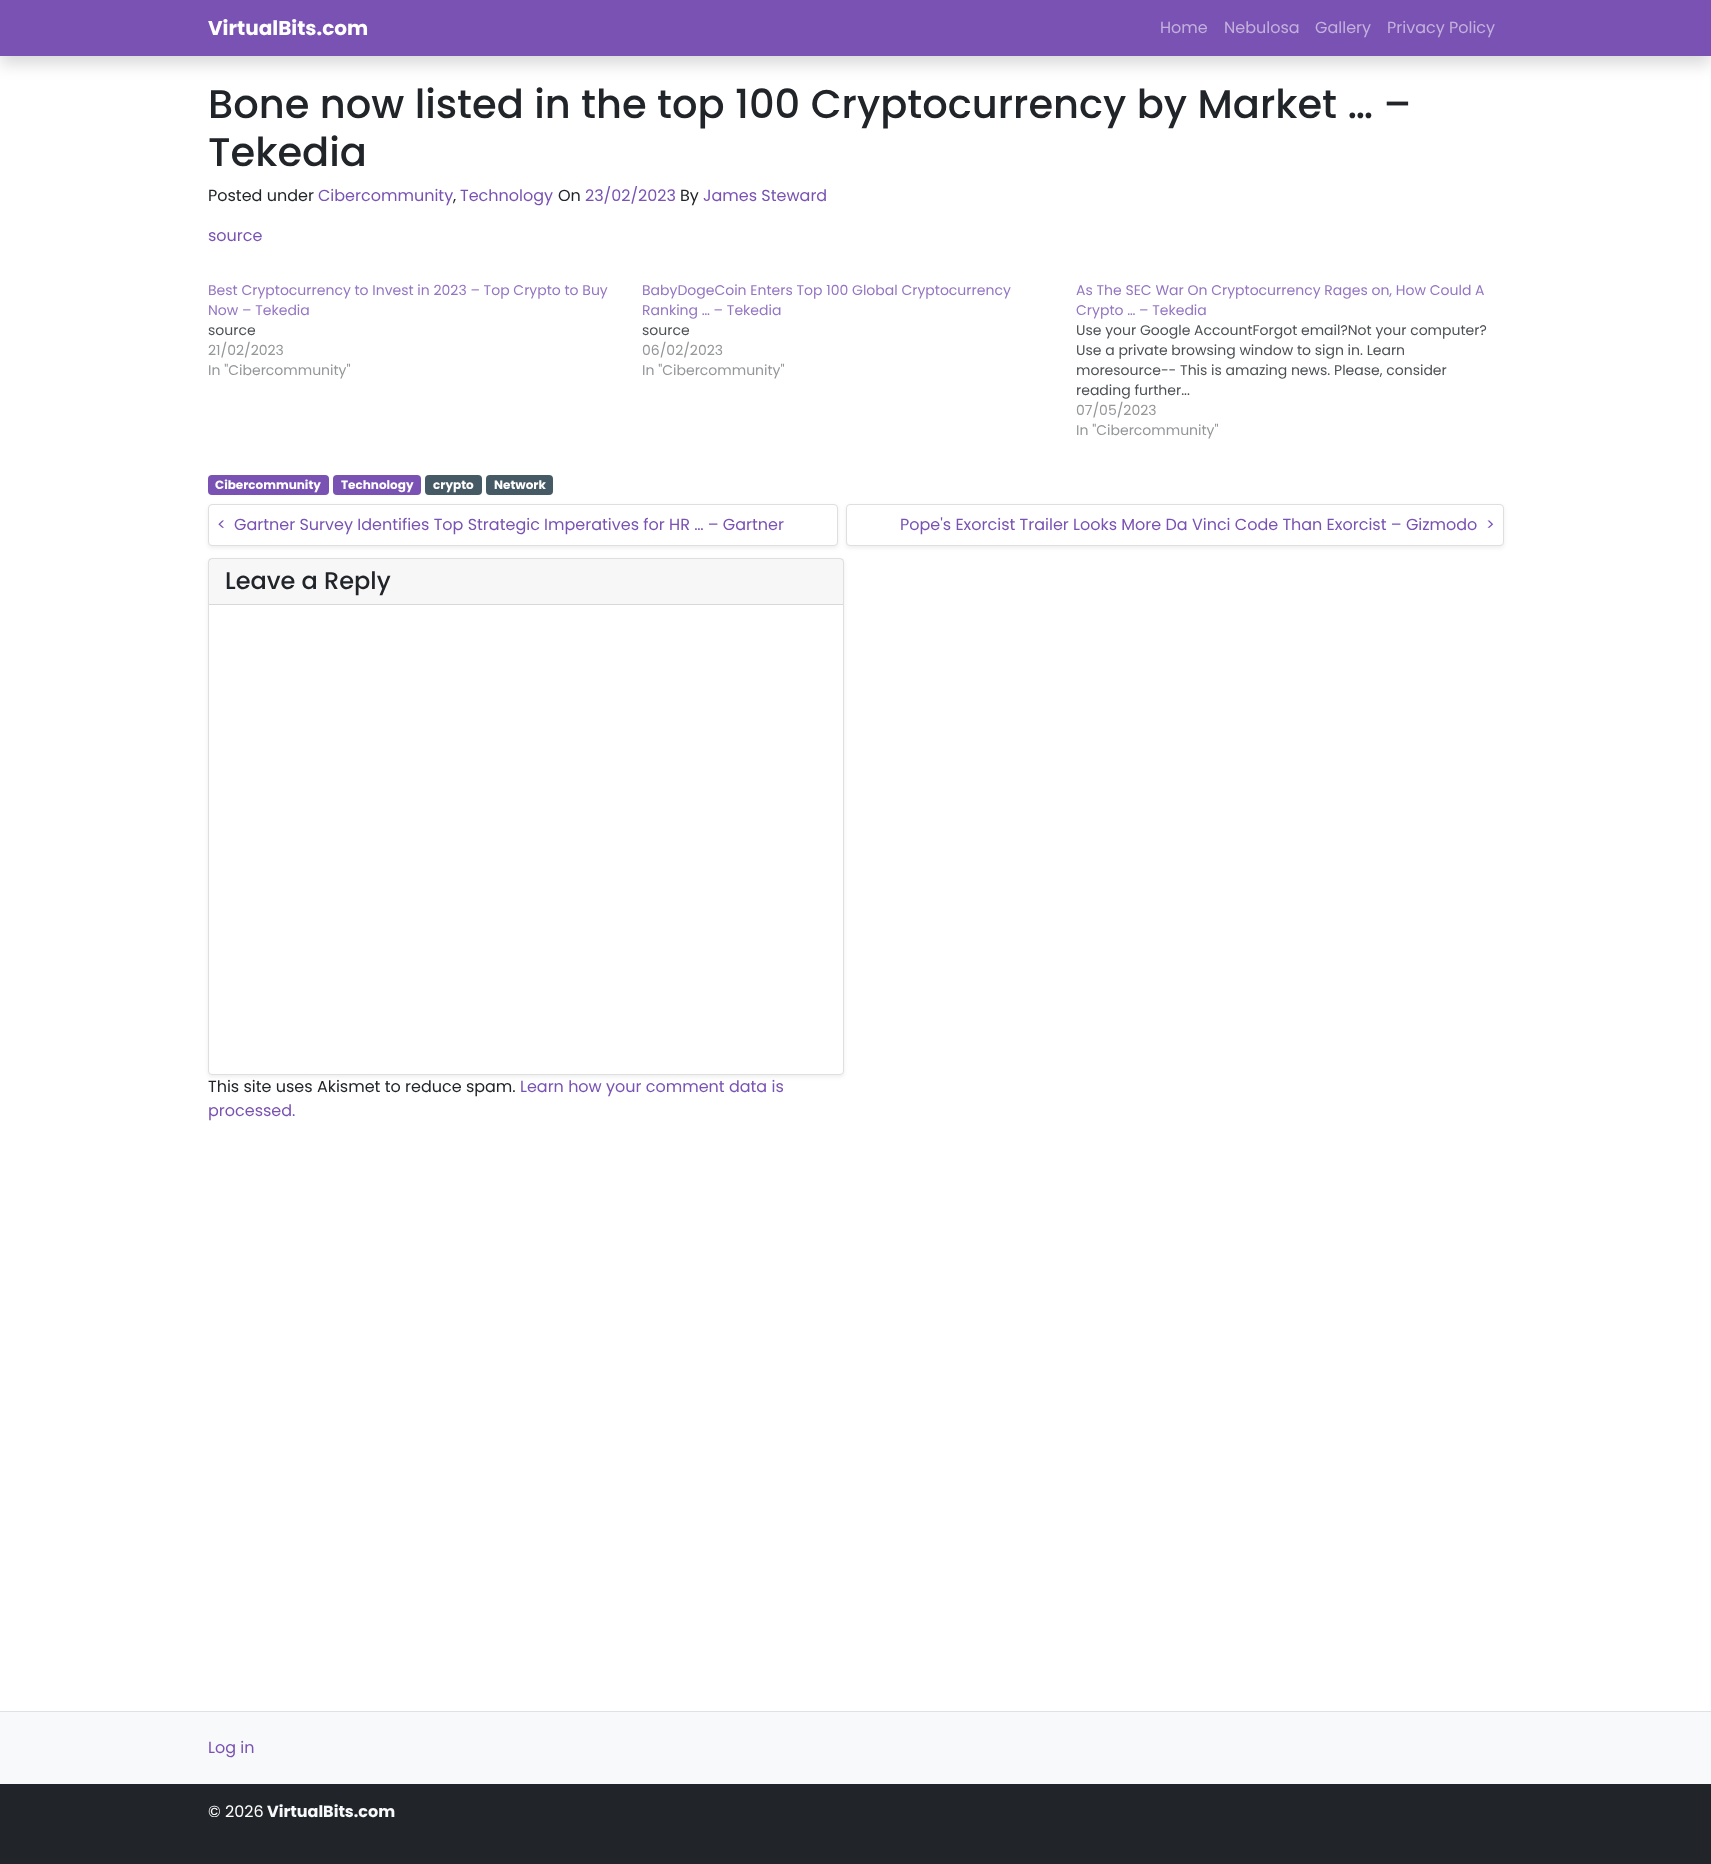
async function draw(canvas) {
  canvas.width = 1711;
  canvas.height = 1864;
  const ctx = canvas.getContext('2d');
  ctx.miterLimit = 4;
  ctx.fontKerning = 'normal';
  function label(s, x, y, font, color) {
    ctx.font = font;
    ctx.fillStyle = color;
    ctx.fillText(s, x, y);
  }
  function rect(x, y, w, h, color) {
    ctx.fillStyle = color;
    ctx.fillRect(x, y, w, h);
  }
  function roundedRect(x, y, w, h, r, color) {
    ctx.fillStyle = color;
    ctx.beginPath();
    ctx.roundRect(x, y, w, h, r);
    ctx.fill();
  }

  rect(0, 0, 1711, 1864, '#fff');
  ctx.fillStyle = '#00000026';
  ctx.filter = 'blur(8px)';
  ctx.beginPath();
  ctx.rect(0, 8, 1711, 56);
  ctx.fill();
  ctx.filter = 'none';
  rect(0, 0, 1711, 56, '#7952b3');
  label('VirtualBits.com', 208, 35, 'bold 20px Poppins', '#fff');
  label('Home', 1160, 33, '16px Poppins', '#c3b1dd');
  label('Nebulosa', 1224, 33, '16px Poppins', '#c3b1dd');
  label('Gallery', 1315, 33, '16px Poppins', '#c3b1dd');
  label('Privacy Policy', 1387, 33, '16px Poppins', '#c3b1dd');
  label('Bone now listed in the top 100 Cryptocurrency by Market … –', 208, 118, '500 40px Poppins', '#212529');
  label('Tekedia', 208, 166, '500 40px Poppins', '#212529');
  label('Posted under', 208, 201, '16px Poppins', '#212529');
  label('Cibercommunity', 318, 201, '16px Poppins', '#7952b3');
  label(',', 453, 201, '16px Poppins', '#212529');
  label('Technology', 460, 201, '16px Poppins', '#7952b3');
  label('On', 558, 201, '16px Poppins', '#212529');
  label('23/02/2023', 585, 201, '16px Poppins', '#7952b3');
  label('By', 680, 201, '16px Poppins', '#212529');
  label('James Steward', 703, 201, '16px Poppins', '#7952b3');
  label('source', 208, 241, '16px Poppins', '#7952b3');
  label('Best Cryptocurrency to Invest in 2023 – Top Crypto to Buy', 208, 295, '14px Poppins', '#9475c2');
  label('Now – Tekedia', 208, 315, '14px Poppins', '#9475c2');
  label('source', 208, 335, '14px Poppins', '#4d5154');
  label('21/02/2023', 208, 355, '14px Poppins', '#949698');
  label('In "Cibercommunity"', 208, 375, '14px Poppins', '#949698');
  label('BabyDogeCoin Enters Top 100 Global Cryptocurrency', 642, 295, '14px Poppins', '#9475c2');
  label('Ranking … – Tekedia', 642, 315, '14px Poppins', '#9475c2');
  label('source', 642, 335, '14px Poppins', '#4d5154');
  label('06/02/2023', 642, 355, '14px Poppins', '#949698');
  label('In "Cibercommunity"', 642, 375, '14px Poppins', '#949698');
  label('As The SEC War On Cryptocurrency Rages on, How Could A', 1076, 295, '14px Poppins', '#9475c2');
  label('Crypto … – Tekedia', 1076, 315, '14px Poppins', '#9475c2');
  label('Use your Google AccountForgot email?Not your computer?', 1076, 335, '14px Poppins', '#4d5154');
  label('Use a private browsing window to sign in. Learn', 1076, 355, '14px Poppins', '#4d5154');
  label('moresource-- This is amazing news. Please, consider', 1076, 375, '14px Poppins', '#4d5154');
  label('reading further...', 1076, 395, '14px Poppins', '#4d5154');
  label('07/05/2023', 1076, 415, '14px Poppins', '#949698');
  label('In "Cibercommunity"', 1076, 435, '14px Poppins', '#949698');
  roundedRect(208, 475, 121, 20, 4, '#7952b3');
  label('Cibercommunity', 215, 489, 'bold 12px Poppins', '#fff');
  roundedRect(333, 475, 88, 20, 4, '#7952b3');
  label('Technology', 341, 489, 'bold 12px Poppins', '#fff');
  roundedRect(425, 475, 57, 20, 4, '#455a64');
  label('crypto', 433, 489, 'bold 12px Poppins', '#fff');
  roundedRect(486, 475, 67, 20, 4, '#455a64');
  label('Network', 494, 489, 'bold 12px Poppins', '#fff');
  ctx.fillStyle = '#00000012';
  ctx.filter = 'blur(2px)';
  ctx.beginPath();
  ctx.roundRect(208, 506, 630, 42, 4);
  ctx.fill();
  ctx.filter = 'none';
  ctx.fillStyle = '#fff';
  ctx.beginPath();
  ctx.roundRect(208.5, 504.5, 629, 41, 3.5);
  ctx.fill();
  ctx.strokeStyle = '#dfdfdf';
  ctx.stroke();
  label('<', 217, 530, '16px Poppins', '#7952b3');
  label('Gartner Survey Identifies Top Strategic Imperatives for HR … – Gartner', 234, 530, '16px Poppins', '#7952b3');
  ctx.fillStyle = '#00000012';
  ctx.filter = 'blur(2px)';
  ctx.beginPath();
  ctx.roundRect(846, 506, 658, 42, 4);
  ctx.fill();
  ctx.filter = 'none';
  ctx.fillStyle = '#fff';
  ctx.beginPath();
  ctx.roundRect(846.5, 504.5, 657, 41, 3.5);
  ctx.fill();
  ctx.stroke();
  label('Pope\'s Exorcist Trailer Looks More Da Vinci Code Than Exorcist – Gizmodo', 900, 530, '16px Poppins', '#7952b3');
  label('>', 1486, 530, '16px Poppins', '#7952b3');
  ctx.fillStyle = '#00000012';
  ctx.filter = 'blur(2px)';
  ctx.beginPath();
  ctx.roundRect(208, 560, 636, 517, 4);
  ctx.fill();
  ctx.filter = 'none';
  ctx.fillStyle = '#fff';
  ctx.beginPath();
  ctx.roundRect(208.5, 558.5, 635, 516, 3.5);
  ctx.fill();
  ctx.stroke();
  rect(209, 559, 634, 45, '#00000008');
  rect(209, 604, 634, 1, '#d8d8d8');
  label('Leave a Reply', 225, 589, '500 24px Poppins', '#212529');
  label('This site uses Akismet to reduce spam.', 208, 1092, '16px Poppins', '#212529');
  label('Learn how your comment data is', 520, 1092, '16px Poppins', '#7952b3');
  label('processed.', 208, 1116, '16px Poppins', '#7952b3');
  rect(0, 1712, 1711, 72, '#f8f9fa');
  rect(0, 1711, 1711, 1, '#dee2e6');
  label('Log in', 208, 1753, '16px Poppins', '#7952b3');
  rect(0, 1784, 1711, 80, '#212529');
  label('© 2026', 208, 1817, '16px Poppins', '#fff');
  label('VirtualBits.com', 267, 1817, 'bold 16px Poppins', '#f8f9fa');
}

draw(document.querySelector('canvas'));
